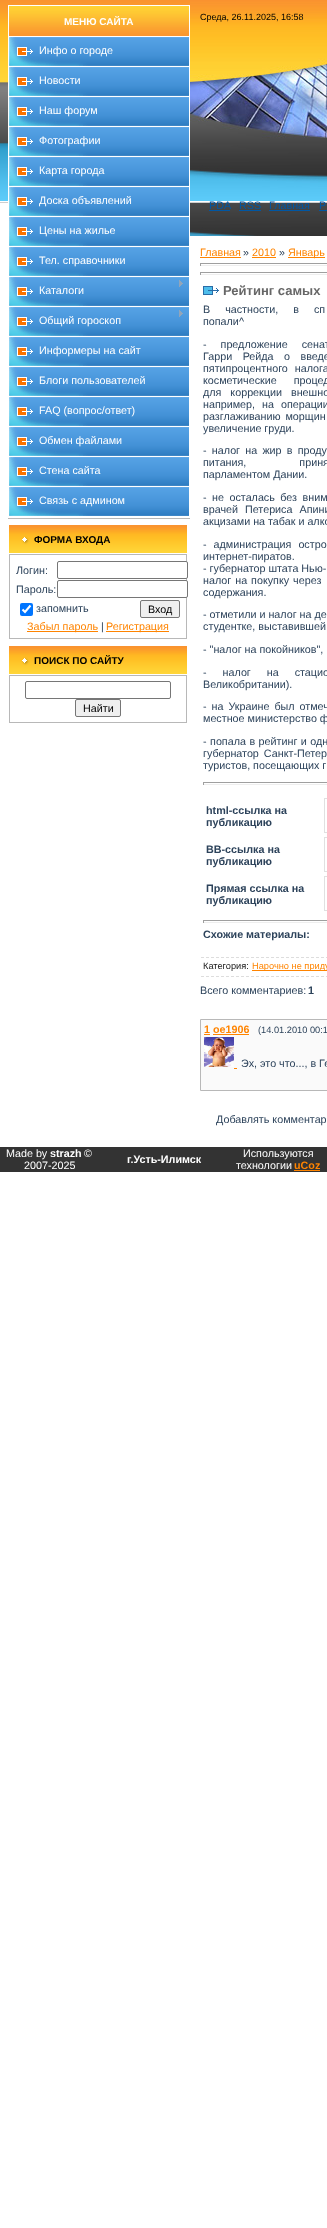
async function draw(canvas) {
  canvas.width = 327;
  canvas.height = 2228;
  const ctx = canvas.getContext('2d');
  ctx.miterLimit = 4;
  ctx.fontKerning = 'normal';
  function label(s, x, y, font, color) {
    ctx.font = font;
    ctx.fillStyle = color;
    ctx.fillText(s, x, y);
  }
  function rect(x, y, w, h, color) {
    ctx.fillStyle = color;
    ctx.fillRect(x, y, w, h);
  }
  function roundedRect(x, y, w, h, r, color) {
    ctx.fillStyle = color;
    ctx.beginPath();
    ctx.roundRect(x, y, w, h, r);
    ctx.fill();
  }
  async function image(src, x, y, w, h) {
    const img = new Image();
    img.src = src;
    await img.decode();
    ctx.drawImage(img, x, y, w, h);
  }
  let path;

  rect(0, 0, 327, 2228, '#fff');
  await image('assets/img1.png', 0, 0, 3, 203);
  await image('assets/img2.png', 3, 0, 187, 203);
  rect(8, 5, 182, 198, '#fff');
  rect(8, 518, 182, 1, '#b8b8b8');
  await image('assets/img3.png', 9, 6, 180, 30);
  label('МЕНЮ САЙТА', 64, 25, 'bold 10px Liberation Sans', '#fff');
  await image('assets/img4.png', 9, 37, 180, 29);
  label('Инфо о городе', 39, 54, '10.75px Liberation Sans', '#fff');
  await image('assets/img4.png', 9, 67, 180, 29);
  label('Новости', 39, 84, '10.75px Liberation Sans', '#fff');
  await image('assets/img4.png', 9, 97, 180, 29);
  label('Наш форум', 39, 114, '10.75px Liberation Sans', '#fff');
  await image('assets/img4.png', 9, 127, 180, 29);
  label('Фотографии', 39, 144, '10.75px Liberation Sans', '#fff');
  await image('assets/img4.png', 9, 157, 180, 29);
  label('Карта города', 39, 174, '10.75px Liberation Sans', '#fff');
  await image('assets/img4.png', 9, 187, 180, 29);
  label('Доска объявлений', 39, 204, '10.75px Liberation Sans', '#fff');
  await image('assets/img4.png', 9, 217, 180, 29);
  label('Цены на жилье', 39, 234, '10.75px Liberation Sans', '#fff');
  await image('assets/img4.png', 9, 247, 180, 29);
  label('Тел. справочники', 39, 264, '10.75px Liberation Sans', '#fff');
  await image('assets/img4.png', 9, 277, 180, 29);
  await image('assets/img5.png', 179, 280, 4, 7);
  label('Каталоги', 39, 294, '10.75px Liberation Sans', '#fff');
  await image('assets/img4.png', 9, 307, 180, 29);
  await image('assets/img5.png', 179, 310, 4, 7);
  label('Общий гороскоп', 39, 324, '10.75px Liberation Sans', '#fff');
  await image('assets/img4.png', 9, 337, 180, 29);
  label('Информеры на сайт', 39, 354, '10.75px Liberation Sans', '#fff');
  await image('assets/img4.png', 9, 367, 180, 29);
  label('Блоги пользователей', 39, 384, '10.75px Liberation Sans', '#fff');
  await image('assets/img4.png', 9, 397, 180, 29);
  label('FAQ (вопрос/ответ)', 39, 414, '10.75px Liberation Sans', '#fff');
  await image('assets/img4.png', 9, 427, 180, 29);
  label('Обмен файлами', 39, 444, '10.75px Liberation Sans', '#fff');
  await image('assets/img4.png', 9, 457, 180, 29);
  label('Стена сайта', 39, 474, '10.75px Liberation Sans', '#fff');
  await image('assets/img4.png', 9, 487, 180, 29);
  label('Связь с админом', 39, 504, '10.75px Liberation Sans', '#fff');
  await image('assets/img6.png', 9, 525, 178, 28);
  label('ФОРМА ВХОДА', 34, 543, 'bold 10px Liberation Sans', '#000');
  ctx.strokeStyle = '#b8b8b8';
  ctx.strokeRect(9.5, 554.5, 177, 84);
  label('Логин:', 16, 574, '10.75px Liberation Sans', '#2d435b');
  ctx.fillStyle = '#fff';
  ctx.beginPath();
  ctx.roundRect(57.5, 561.5, 130, 17, 1.5);
  ctx.fill();
  ctx.strokeStyle = '#767676';
  ctx.stroke();
  label('Пароль:', 16, 593, '10.75px Liberation Sans', '#2d435b');
  ctx.fillStyle = '#fff';
  ctx.beginPath();
  ctx.roundRect(57.5, 580.5, 130, 17, 1.5);
  ctx.fill();
  ctx.stroke();
  roundedRect(20, 603, 13, 13, 2, '#0075ff');
  path = new Path2D('M22.5 609.5L25 612L30.5 605.5');
  ctx.strokeStyle = '#fff';
  ctx.lineWidth = 2.1;
  ctx.stroke(path);
  label('запомнить', 36, 612, '10.75px Liberation Sans', '#2d435b');
  ctx.fillStyle = '#efefef';
  ctx.beginPath();
  ctx.roundRect(140.5, 600.5, 39, 17, 1.5);
  ctx.fill();
  ctx.strokeStyle = '#767676';
  ctx.lineWidth = 1;
  ctx.stroke();
  label('Вход', 148, 613, '10.75px Liberation Sans', '#000');
  rect(27, 631, 71, 1, '#ff8400');
  label('Забыл пароль', 27, 630, '10.75px Liberation Sans', '#ff8400');
  label('|', 101, 630, '10.75px Liberation Sans', '#2d435b');
  rect(106, 631, 63, 1, '#ff8400');
  label('Регистрация', 106, 630, '10.75px Liberation Sans', '#ff8400');
  await image('assets/img6.png', 9, 646, 178, 28);
  label('ПОИСК ПО САЙТУ', 34, 664, 'bold 10px Liberation Sans', '#000');
  ctx.strokeStyle = '#b8b8b8';
  ctx.strokeRect(9.5, 675.5, 177, 47);
  ctx.beginPath();
  ctx.roundRect(25.5, 681.5, 145, 17, 1.5);
  ctx.strokeStyle = '#767676';
  ctx.stroke();
  ctx.fillStyle = '#efefef';
  ctx.beginPath();
  ctx.roundRect(75.5, 699.5, 45, 17, 1.5);
  ctx.fill();
  ctx.stroke();
  label('Найти', 83, 712, '10.75px Liberation Sans', '#000');
  await image('assets/img7.png', 190, 0, 137, 34);
  label('Среда, 26.11.2025, 16:58', 200, 20, '9px Liberation Sans', '#000');
  await image('assets/img8.png', 190, 34, 137, 107);
  await image('assets/img9.png', 190, 141, 137, 95);
  label('PDA', 209, 209, '10.75px Liberation Sans', '#0057a4');
  rect(209, 210, 21, 1, '#0057a4');
  label('RSS', 239, 209, '10.75px Liberation Sans', '#0057a4');
  rect(239, 210, 22, 1, '#0057a4');
  label('Главная', 269, 209, '10.75px Liberation Sans', '#0057a4');
  rect(269, 210, 41, 1, '#0057a4');
  label('Р', 319, 209, '10.75px Liberation Sans', '#0057a4');
  rect(319, 210, 8, 1, '#0057a4');
  label('Главная', 200, 256, '10.75px Liberation Sans', '#ff8400');
  rect(200, 257, 41, 1, '#ff8400');
  label('»', 243, 256, '10.75px Liberation Sans', '#2d435b');
  label('2010', 252, 256, '10.75px Liberation Sans', '#ff8400');
  rect(252, 257, 24, 1, '#ff8400');
  label('»', 279, 256, '10.75px Liberation Sans', '#2d435b');
  rect(288, 257, 37, 1, '#ff8400');
  label('Январь', 288, 256, '10.75px Liberation Sans', '#ff8400');
  rect(200, 263, 127, 1, '#9f9f9f');
  rect(200, 265, 127, 1, '#eee');
  rect(200, 263, 1, 3, '#9f9f9f');
  rect(200, 272, 127, 1, '#9f9f9f');
  rect(200, 274, 127, 1, '#eee');
  rect(200, 272, 1, 3, '#9f9f9f');
  await image('assets/img10.png', 203, 286, 16, 9);
  label('Рейтинг самых', 223, 295, 'bold 13px Liberation Sans', '#666');
  ctx.wordSpacing = '12px';
  label('В частности, в сп', 203, 313, '10.75px Liberation Sans', '#2d435b');
  ctx.wordSpacing = '0px';
  label('попали^', 203, 325, '10.75px Liberation Sans', '#2d435b');
  ctx.wordSpacing = '11px';
  label('- предложение сенат', 203, 348, '10.75px Liberation Sans', '#2d435b');
  ctx.wordSpacing = '7.5px';
  label('Гарри Рейда о введе', 203, 360, '10.75px Liberation Sans', '#2d435b');
  ctx.wordSpacing = '4px';
  label('пятипроцентного налога', 203, 372, '10.75px Liberation Sans', '#2d435b');
  ctx.wordSpacing = '14px';
  label('косметические процед', 203, 384, '10.75px Liberation Sans', '#2d435b');
  ctx.wordSpacing = '6px';
  label('для коррекции внешно', 203, 396, '10.75px Liberation Sans', '#2d435b');
  ctx.wordSpacing = '4px';
  label('например, на операции', 203, 408, '10.75px Liberation Sans', '#2d435b');
  ctx.wordSpacing = '2px';
  label('разглаживанию морщин', 203, 420, '10.75px Liberation Sans', '#2d435b');
  ctx.wordSpacing = '0px';
  label('увеличение груди.', 203, 432, '10.75px Liberation Sans', '#2d435b');
  ctx.wordSpacing = '2.25px';
  label('- налог на жир в проду', 203, 454, '10.75px Liberation Sans', '#2d435b');
  ctx.wordSpacing = '50px';
  label('питания, приня', 203, 466, '10.75px Liberation Sans', '#2d435b');
  ctx.wordSpacing = '0px';
  label('парламентом Дании.', 203, 478, '10.75px Liberation Sans', '#2d435b');
  ctx.wordSpacing = '2.5px';
  label('- не осталась без вним', 203, 501, '10.75px Liberation Sans', '#2d435b');
  ctx.wordSpacing = '4px';
  label('врачей Петериса Апини', 203, 513, '10.75px Liberation Sans', '#2d435b');
  ctx.wordSpacing = '0px';
  label('акцизами на табак и алко', 203, 525, '10.75px Liberation Sans', '#2d435b');
  ctx.wordSpacing = '4px';
  label('- администрация остро', 203, 548, '10.75px Liberation Sans', '#2d435b');
  ctx.wordSpacing = '0px';
  label('интернет-пиратов.', 203, 560, '10.75px Liberation Sans', '#2d435b');
  label('- губернатор штата Нью-', 203, 572, '10.75px Liberation Sans', '#2d435b');
  ctx.wordSpacing = '1px';
  label('налог на покупку через', 203, 584, '10.75px Liberation Sans', '#2d435b');
  ctx.wordSpacing = '0px';
  label('содержания.', 203, 596, '10.75px Liberation Sans', '#2d435b');
  label('- отметили и налог на де', 203, 618, '10.75px Liberation Sans', '#2d435b');
  label('студентке, выставившей', 203, 630, '10.75px Liberation Sans', '#2d435b');
  label('- "налог на покойников",', 203, 653, '10.75px Liberation Sans', '#2d435b');
  ctx.wordSpacing = '13px';
  label('- налог на стацио', 203, 676, '10.75px Liberation Sans', '#2d435b');
  ctx.wordSpacing = '0px';
  label('Великобритании).', 203, 688, '10.75px Liberation Sans', '#2d435b');
  ctx.wordSpacing = '2px';
  label('- на Украине был отмеч', 203, 710, '10.75px Liberation Sans', '#2d435b');
  ctx.wordSpacing = '0px';
  label('местное министерство ф', 203, 722, '10.75px Liberation Sans', '#2d435b');
  ctx.wordSpacing = '0.5px';
  label('- попала в рейтинг и одн', 203, 745, '10.75px Liberation Sans', '#2d435b');
  ctx.wordSpacing = '2px';
  label('губернатор Санкт-Петер', 203, 757, '10.75px Liberation Sans', '#2d435b');
  ctx.wordSpacing = '0px';
  label('туристов, посещающих г', 203, 769, '10.75px Liberation Sans', '#2d435b');
  rect(203, 782, 124, 1, '#9f9f9f');
  rect(203, 784, 124, 1, '#eee');
  rect(203, 782, 1, 3, '#9f9f9f');
  label('html-cсылка на', 206, 814, 'bold 10.75px Liberation Sans', '#2d435b');
  label('публикацию', 206, 826, 'bold 10.75px Liberation Sans', '#2d435b');
  ctx.strokeStyle = '#e0e0e0';
  ctx.strokeRect(324.5, 798.5, 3, 34);
  label('BB-cсылка на', 206, 853, 'bold 10.75px Liberation Sans', '#2d435b');
  label('публикацию', 206, 865, 'bold 10.75px Liberation Sans', '#2d435b');
  ctx.strokeRect(324.5, 837.5, 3, 34);
  label('Прямая ссылка на', 206, 892, 'bold 10.75px Liberation Sans', '#2d435b');
  label('публикацию', 206, 904, 'bold 10.75px Liberation Sans', '#2d435b');
  ctx.strokeRect(324.5, 876.5, 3, 34);
  rect(203, 920, 124, 1, '#9f9f9f');
  rect(203, 922, 124, 1, '#eee');
  rect(203, 920, 1, 3, '#9f9f9f');
  label('Схожие материалы:', 203, 938, 'bold 10.75px Liberation Sans', '#2d435b');
  path = new Path2D('M201 957.5H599');
  ctx.strokeStyle = '#ddd';
  ctx.setLineDash([3, 2]);
  ctx.stroke(path);
  path = new Path2D('M201 976.5H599');
  ctx.stroke(path);
  label('Категория:', 203, 969, '9.25px Liberation Sans', '#1a1a1a');
  rect(252, 970, 75, 1, '#ff8400');
  label('Нарочно не приду', 252, 969, '9.25px Liberation Sans', '#ff8400');
  label('Всего комментариев:', 200, 994, '10.75px Liberation Sans', '#2d435b');
  label('1', 308, 994, 'bold 10.75px Liberation Sans', '#2d435b');
  ctx.fillStyle = '#fafafa';
  ctx.beginPath();
  ctx.rect(200.5, 1019.5, 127, 71);
  ctx.fill();
  ctx.strokeStyle = '#b8b8b8';
  ctx.setLineDash([]);
  ctx.stroke();
  label('1 oe1906', 204, 1033, 'bold 10.75px Liberation Sans', '#ff8400');
  rect(204, 1034, 6, 1, '#ff8400');
  label('(14.01.2010 00:1', 258, 1033, '9.25px Liberation Sans', '#2d435b');
  rect(213, 1034, 36, 1, '#ff8400');
  await image('assets/img11.png', 204, 1037, 30, 30);
  rect(234, 1068, 3, 1, '#ff8400');
  label('Эх, это что..., в Ге', 241, 1067, '10.75px Liberation Sans', '#2d435b');
  label('Добавлять комментар', 216, 1123, '10.75px Liberation Sans', '#2d435b');
  rect(0, 1147, 327, 25, '#333');
  label('Made by', 6, 1157, '10.75px Liberation Sans', '#fff');
  label('strazh', 50, 1157, 'bold 10.75px Liberation Sans', '#fff');
  label('©', 84, 1157, '10.75px Liberation Sans', '#fff');
  label('2007-2025', 24, 1169, '10.75px Liberation Sans', '#fff');
  label('г.Усть-Илимск', 127, 1163, 'bold 10.75px Liberation Sans', '#fff');
  label('Используются', 243, 1157, '10.75px Liberation Sans', '#fff');
  label('технологии', 236, 1169, '10.75px Liberation Sans', '#fff');
  label('uCoz', 294, 1169, 'bold 10.75px Liberation Sans', '#ff8400');
  rect(294, 1170, 26, 1, '#ff8400');
}

draw(document.querySelector('canvas'));
